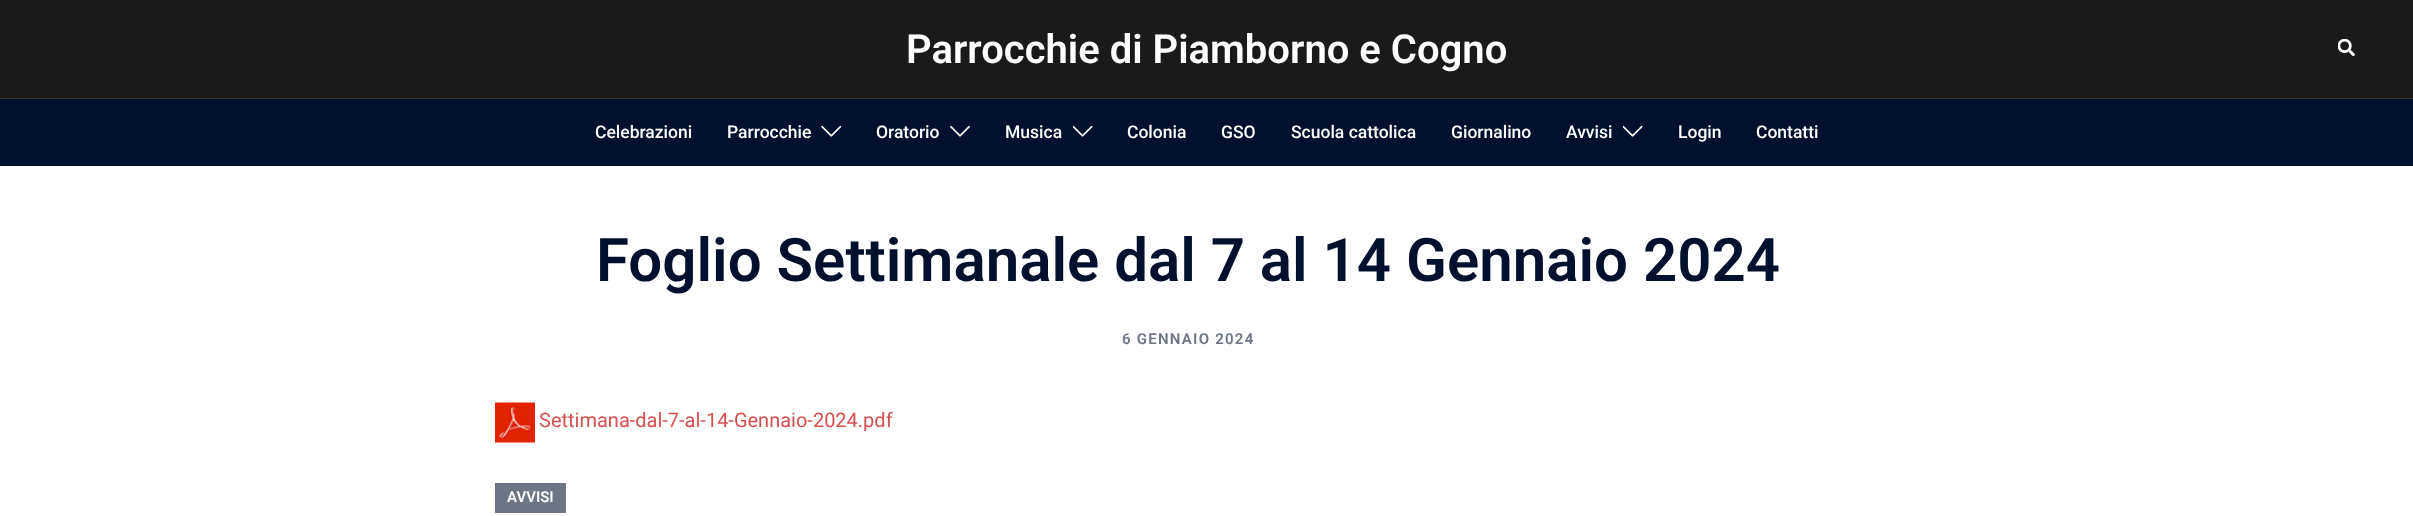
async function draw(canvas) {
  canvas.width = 2413;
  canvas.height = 516;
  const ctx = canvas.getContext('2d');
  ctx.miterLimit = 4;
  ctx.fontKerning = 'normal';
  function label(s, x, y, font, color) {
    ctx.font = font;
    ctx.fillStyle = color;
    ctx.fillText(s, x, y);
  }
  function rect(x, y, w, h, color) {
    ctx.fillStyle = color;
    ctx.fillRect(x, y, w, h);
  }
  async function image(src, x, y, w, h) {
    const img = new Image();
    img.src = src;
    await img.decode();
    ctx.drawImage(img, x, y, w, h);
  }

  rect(0, 0, 2413, 516, '#fff');
  rect(0, 0, 2413, 98, '#1a1a1a');
  rect(0, 98, 2413, 1, '#313131');
  label('Parrocchie di Piamborno e Cogno', 906, 63, '600 40px Roboto', '#fff');
  await image('assets/img1.png', 2338, 39, 17, 17);
  rect(0, 99, 2413, 67, '#00102e');
  label('Celebrazioni', 595, 138, '500 17.5px Roboto', '#fff');
  label('Parrocchie', 727, 138, '500 17.5px Roboto', '#fff');
  await image('assets/img2.png', 821, 125, 20, 12);
  label('Oratorio', 876, 138, '500 17.5px Roboto', '#fff');
  await image('assets/img3.png', 950, 125, 20, 12);
  label('Musica', 1005, 138, '500 17.5px Roboto', '#fff');
  await image('assets/img4.png', 1073, 125, 20, 12);
  label('Colonia', 1127, 138, '500 17.5px Roboto', '#fff');
  label('GSO', 1221, 138, '500 17.5px Roboto', '#fff');
  label('Scuola cattolica', 1291, 138, '500 17.5px Roboto', '#fff');
  label('Giornalino', 1451, 138, '500 17.5px Roboto', '#fff');
  label('Avvisi', 1566, 138, '500 17.5px Roboto', '#fff');
  await image('assets/img4.png', 1623, 125, 20, 12);
  label('Login', 1678, 138, '500 17.5px Roboto', '#fff');
  label('Contatti', 1756, 138, '500 17.5px Roboto', '#fff');
  label('Foglio Settimanale dal 7 al 14 Gennaio 2024', 596, 281, '600 60px Roboto', '#00102e');
  ctx.letterSpacing = '1.25px';
  label('6 GENNAIO 2024', 1122, 344, '600 15px Roboto', '#6d7685');
  await image('assets/img5.png', 495, 402, 40, 41);
  ctx.letterSpacing = '0px';
  label('Settimana-dal-7-al-14-Gennaio-2024.pdf', 539, 427, '20px Roboto', '#d65050');
  rect(495, 483, 71, 30, '#6d7685');
  label('AVVISI', 507, 502, '600 15px Roboto', '#fff');
}

draw(document.querySelector('canvas'));
